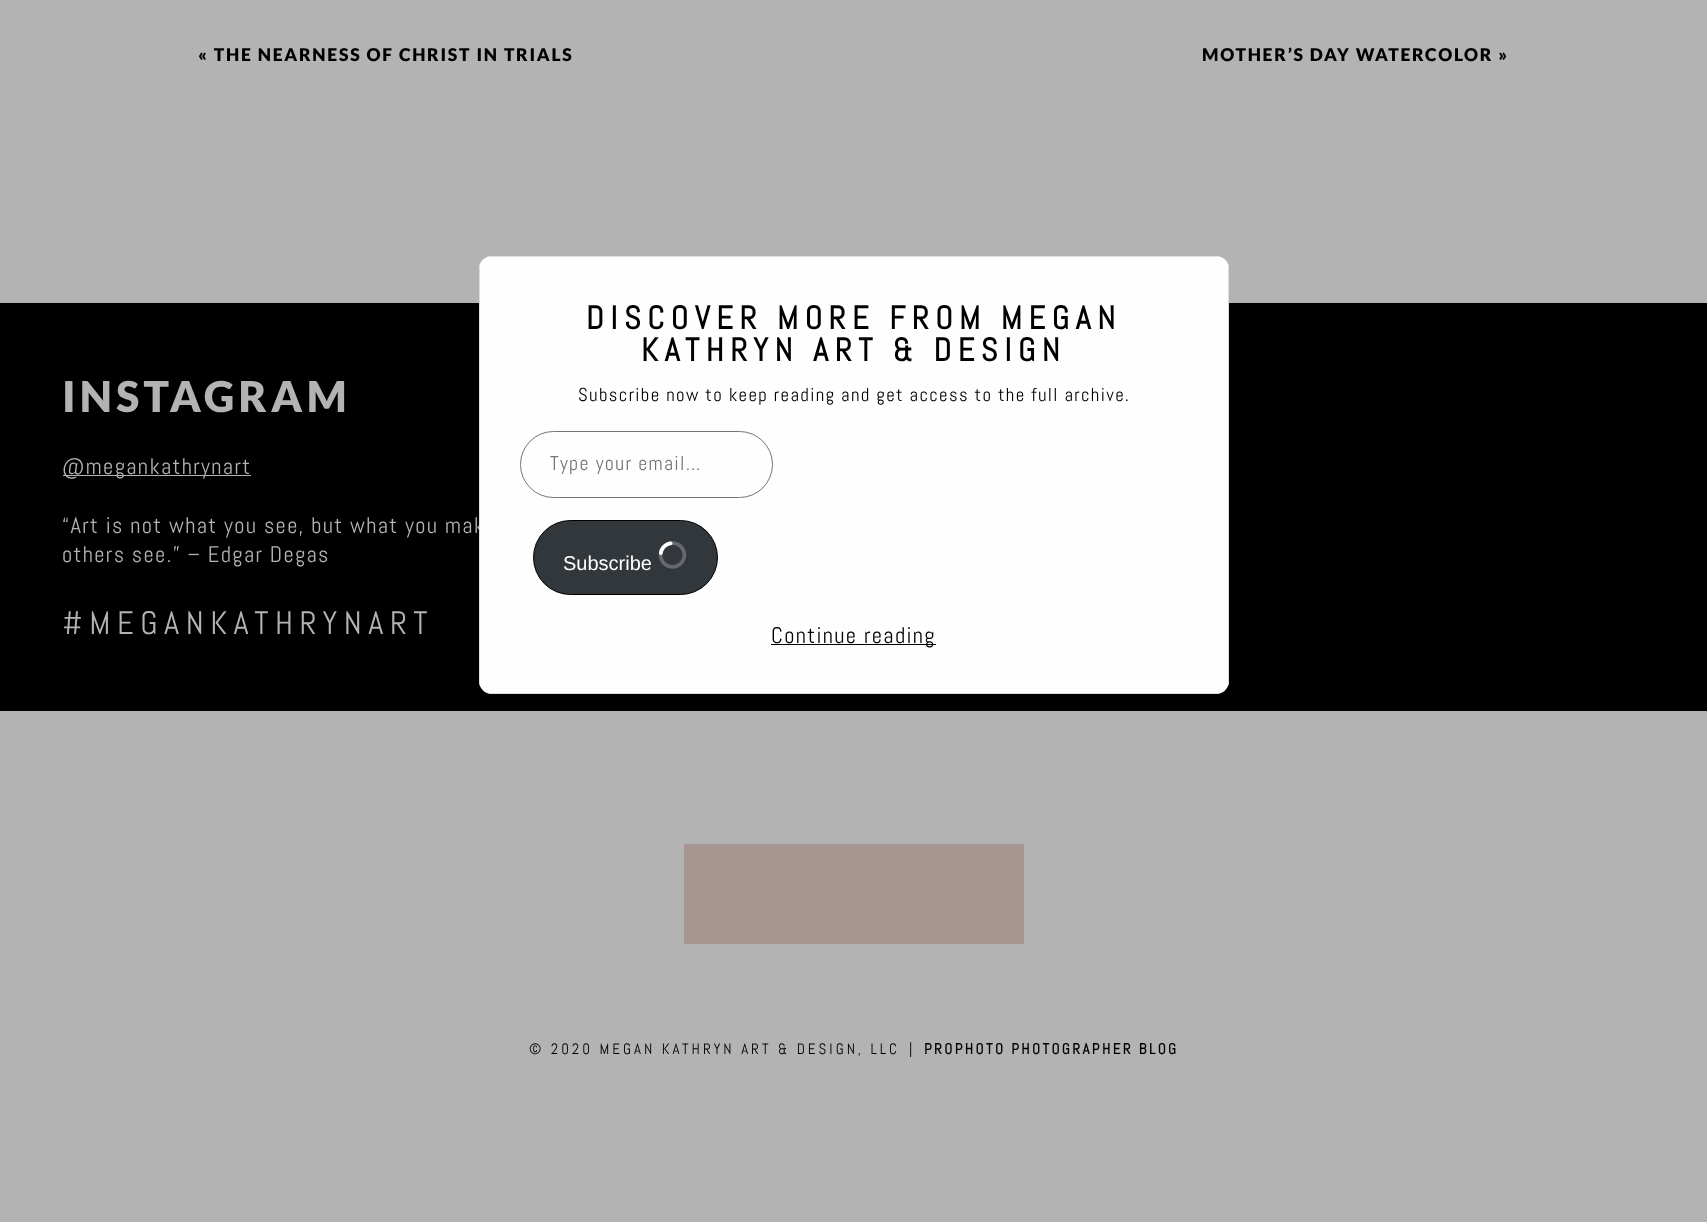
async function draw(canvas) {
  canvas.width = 1707;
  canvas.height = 1222;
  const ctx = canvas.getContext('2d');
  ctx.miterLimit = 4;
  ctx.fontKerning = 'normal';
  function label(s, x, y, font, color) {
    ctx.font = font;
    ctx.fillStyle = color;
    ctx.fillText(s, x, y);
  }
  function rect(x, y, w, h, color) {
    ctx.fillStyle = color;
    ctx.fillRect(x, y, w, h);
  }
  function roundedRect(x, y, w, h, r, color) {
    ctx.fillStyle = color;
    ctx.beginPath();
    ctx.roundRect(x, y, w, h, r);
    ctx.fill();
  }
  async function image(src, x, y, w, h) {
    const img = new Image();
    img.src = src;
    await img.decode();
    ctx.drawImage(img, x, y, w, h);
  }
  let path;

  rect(0, 0, 1707, 1222, '#b3b3b3');
  ctx.letterSpacing = '1.75px';
  label('« THE NEARNESS OF CHRIST IN TRIALS', 198, 61, '900 17.5px Lato', '#000');
  label('MOTHER’S DAY WATERCOLOR »', 1202, 61, '900 17.5px Lato', '#000');
  rect(0, 303, 1707, 408, '#000');
  ctx.letterSpacing = '4.25px';
  label('INSTAGRAM', 62, 412, '900 42.5px Lato', '#b3b3b3');
  rect(63, 475, 188, 1, '#b3b3b3');
  ctx.letterSpacing = '1.35px';
  label('@megankathrynart', 62, 474, '22.5px Abel', '#b3b3b3');
  label('“Art is not what you see, but what you mak', 62, 533, '22.5px Abel', '#b3b3b3');
  label('others see.” – Edgar Degas', 62, 562, '22.5px Abel', '#b3b3b3');
  ctx.letterSpacing = '6.5px';
  label('#MEGANKATHRYNART', 62, 634, '32.5px Abel', '#b3b3b3');
  rect(684, 844, 340, 100, '#a79592');
  ctx.letterSpacing = '3px';
  label('© 2020 MEGAN KATHRYN ART & DESIGN, LLC', 529, 1054, '15px Abel', '#000');
  label('|', 909, 1054, '15px Abel', '#000');
  ctx.letterSpacing = '2.4px';
  label('PROPHOTO PHOTOGRAPHER BLOG', 924, 1054, 'bold 15px Abel', '#000');
  roundedRect(479, 256, 750, 438, 13, '#fefefe');
  ctx.fillStyle = '#ddd';
  path = new Path2D('M479 269V681L480 686V264ZM492 256L487 257H1221L1216 256ZM1229 269L1228 264V686L1229 681ZM1216 694L1221 693H487L492 694Z');
  ctx.fill(path, 'evenodd');
  ctx.letterSpacing = '6.5px';
  label('DISCOVER MORE FROM MEGAN', 586, 329, 'bold 32.5px Abel', '#000');
  label('KATHRYN ART & DESIGN', 641, 361, 'bold 32.5px Abel', '#000');
  ctx.letterSpacing = '1.35px';
  label('Subscribe now to keep reading and get access to the full archive.', 578, 401, '18.75px Abel', '#000');
  ctx.beginPath();
  ctx.roundRect(520.5, 431.5, 252, 66, 33);
  ctx.strokeStyle = '#767676';
  ctx.stroke();
  ctx.letterSpacing = '1.25px';
  label('Type your email…', 550, 470, '20px Abel', '#757575');
  ctx.fillStyle = '#32373c';
  ctx.beginPath();
  ctx.roundRect(533.5, 520.5, 184, 74, 37);
  ctx.fill();
  ctx.strokeStyle = '#000';
  ctx.stroke();
  ctx.letterSpacing = '0px';
  label('Subscribe', 563, 570, '20px Liberation Sans', '#fff');
  await image('assets/img1.png', 658, 541, 29, 28);
  rect(771, 644, 165, 1, '#000');
  ctx.letterSpacing = '1.35px';
  label('Continue reading', 771, 643, '22.5px Abel', '#000');
}

draw(document.querySelector('canvas'));
